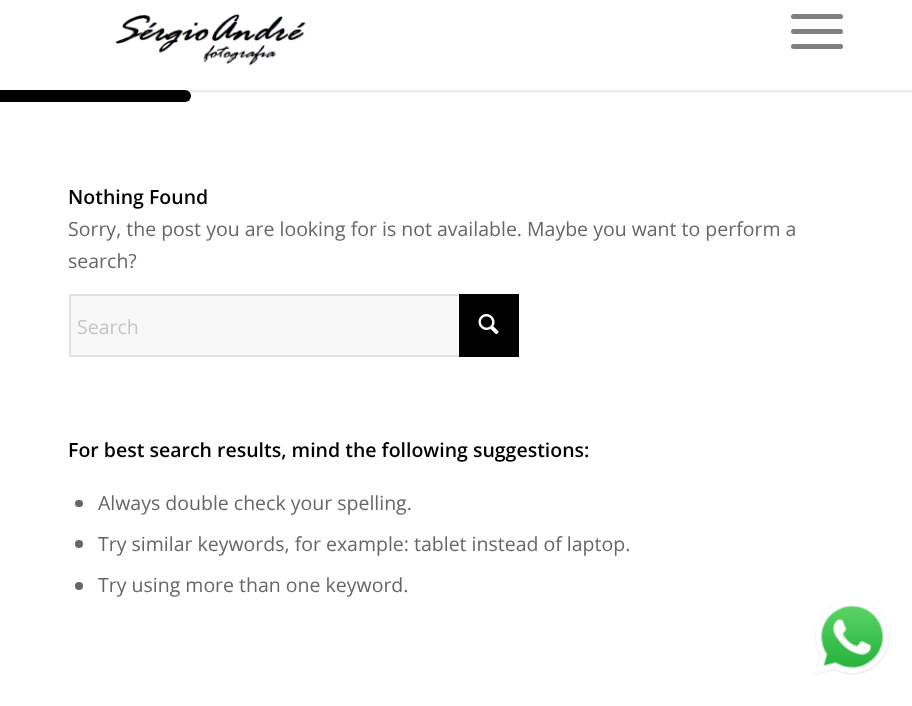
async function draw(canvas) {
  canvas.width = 912;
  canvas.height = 706;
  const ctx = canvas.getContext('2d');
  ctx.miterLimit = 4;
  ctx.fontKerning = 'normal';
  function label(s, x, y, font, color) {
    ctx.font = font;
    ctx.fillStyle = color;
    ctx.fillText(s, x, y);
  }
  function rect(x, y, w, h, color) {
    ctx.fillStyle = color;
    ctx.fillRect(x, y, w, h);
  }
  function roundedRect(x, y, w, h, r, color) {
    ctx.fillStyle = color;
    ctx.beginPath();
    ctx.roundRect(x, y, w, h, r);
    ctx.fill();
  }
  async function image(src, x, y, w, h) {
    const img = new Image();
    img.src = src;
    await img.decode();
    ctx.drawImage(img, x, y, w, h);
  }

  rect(0, 0, 912, 706, '#fff');
  ctx.save();
  ctx.beginPath();
  ctx.rect(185, 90, 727, 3);
  ctx.clip();
  ctx.fillStyle = '#0000001a';
  ctx.filter = 'blur(1.5px)';
  ctx.beginPath();
  ctx.rect(-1, -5, 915, 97);
  ctx.fill();
  ctx.filter = 'none';
  ctx.restore();
  await image('assets/img1.png', 115, 14, 191, 52);
  roundedRect(791, 29, 52, 5, 2.5, '#808080');
  roundedRect(791, 14, 52, 5, 2.5, '#808080');
  roundedRect(791, 44, 52, 5, 2.5, '#808080');
  ctx.fillStyle = '#000';
  ctx.beginPath();
  ctx.roundRect(0, 90, 191, 12, [0, 6, 6, 0]);
  ctx.fill();
  label('Nothing Found', 68, 204, '600 19.5px Open Sans', '#000');
  label('Sorry, the post you are looking for is not available. Maybe you want to perform a', 68, 236, '19.5px Open Sans', '#666');
  label('search?', 68, 268, '19.5px Open Sans', '#666');
  rect(71, 296, 388, 59, '#f8f8f8');
  ctx.strokeStyle = '#e1e1e1';
  ctx.lineWidth = 2;
  ctx.strokeRect(70, 295, 448, 61);
  label('Search', 77, 334, '19.5px Open Sans', '#c5c5c5');
  rect(459, 294, 60, 63, '#000');
  await image('assets/img2.png', 478, 314, 21, 21);
  label('For best search results, mind the following suggestions:', 68, 457, '600 19.5px Open Sans', '#000');
  roundedRect(75, 500, 8, 7, 3.5, '#666');
  label('Always double check your spelling.', 98, 510, '19.5px Open Sans', '#666');
  ctx.beginPath();
  ctx.arc(79, 544, 4, 0, 2 * Math.PI);
  ctx.fill();
  label('Try similar keywords, for example: tablet instead of laptop.', 98, 551, '19.5px Open Sans', '#666');
  ctx.beginPath();
  ctx.arc(79, 586, 4, 0, 2 * Math.PI);
  ctx.fill();
  label('Try using more than one keyword.', 98, 592, '19.5px Open Sans', '#666');
  await image('assets/img3.png', 814, 600, 76, 75);
}

draw(document.querySelector('canvas'));
